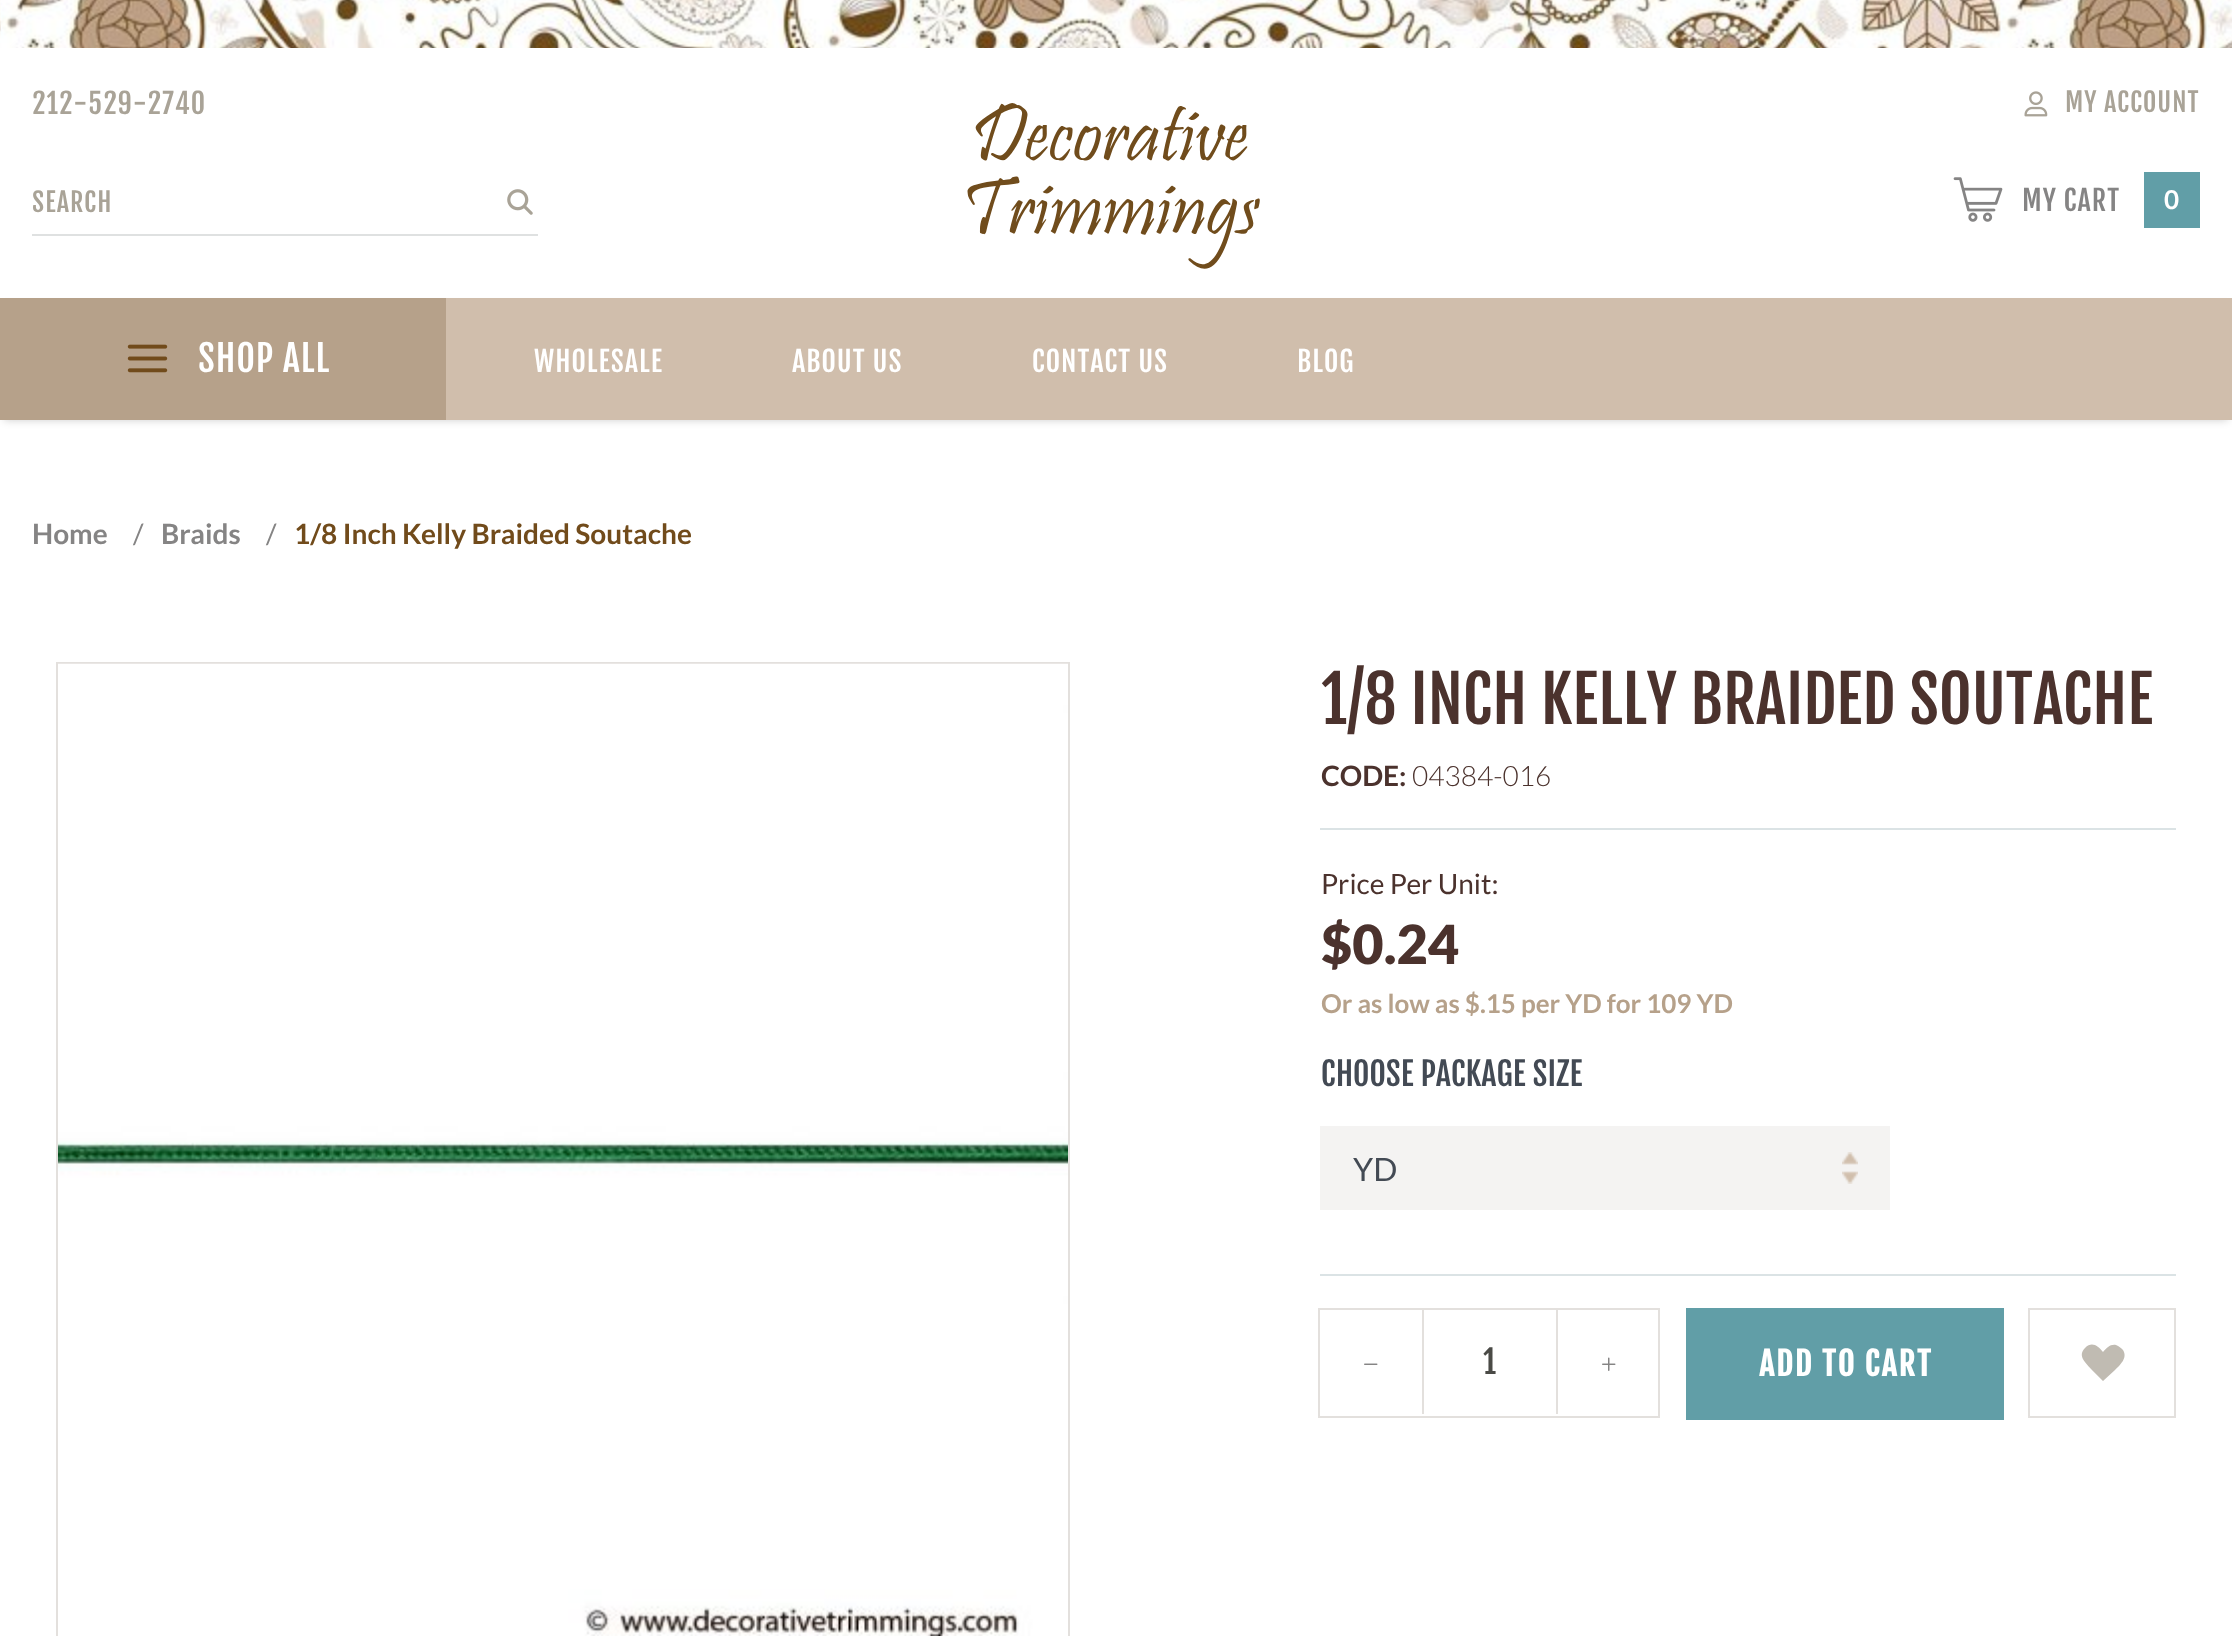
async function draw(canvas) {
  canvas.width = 2232;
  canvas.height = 1636;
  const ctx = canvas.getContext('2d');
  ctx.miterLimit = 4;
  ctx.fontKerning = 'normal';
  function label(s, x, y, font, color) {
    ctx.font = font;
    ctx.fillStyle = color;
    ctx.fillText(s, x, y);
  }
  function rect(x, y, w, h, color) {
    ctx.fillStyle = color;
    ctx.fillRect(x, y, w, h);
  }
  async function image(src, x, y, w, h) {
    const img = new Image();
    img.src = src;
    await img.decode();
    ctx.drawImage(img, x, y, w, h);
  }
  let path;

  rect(0, 0, 2232, 1636, '#fff');
  await image('assets/img1.png', 0, 0, 2232, 48);
  ctx.letterSpacing = '1px';
  label('212-529-2740', 32, 114, '28px Fjalla One', '#a9a397');
  rect(32, 234, 506, 2, '#dfe1e1');
  label('SEARCH', 32, 212, '26px Fjalla One', '#a9a397');
  await image('assets/img2.png', 507, 189, 26, 26);
  await image('assets/img3.png', 967, 103, 293, 166);
  await image('assets/img4.png', 2024, 91, 24, 26);
  label('MY ACCOUNT', 2065, 112, '26px Fjalla One', '#a9a397');
  await image('assets/img5.png', 1953, 177, 50, 45);
  label('MY CART', 2022, 211, '28px Fjalla One', '#858484');
  rect(2144, 172, 56, 56, '#619ea7');
  label('0', 2164, 209, 'bold 26px Lato', '#fff');
  ctx.fillStyle = '#00000033';
  ctx.filter = 'blur(4px)';
  ctx.beginPath();
  ctx.rect(4, 306, 2224, 114);
  ctx.fill();
  ctx.filter = 'none';
  rect(446, 298, 1786, 122, '#d0beac');
  rect(0, 298, 446, 122, '#b6a18a');
  await image('assets/img6.png', 127, 344, 41, 29);
  label('SHOP ALL', 198, 372, '36px Fjalla One', '#fff');
  label('WHOLESALE', 534, 372, '28px Fjalla One', '#fff');
  label('ABOUT US', 792, 372, '28px Fjalla One', '#fff');
  label('CONTACT US', 1032, 372, '28px Fjalla One', '#fff');
  label('BLOG', 1297, 372, '28px Fjalla One', '#fff');
  ctx.letterSpacing = '0px';
  label('Home', 32, 544, 'bold 28px Lato', '#858484');
  label('/', 133, 544, '28px Lato', '#858484');
  label('Braids', 161, 544, 'bold 28px Lato', '#858484');
  label('/', 266, 544, '28px Lato', '#858484');
  label('1/8 Inch Kelly Braided Soutache', 294, 544, 'bold 28px Lato', '#714b1b');
  ctx.strokeStyle = '#e3e0dd';
  ctx.lineWidth = 2;
  ctx.strokeRect(57, 663, 1012, 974);
  await image('assets/img7.png', 58, 663, 1010, 973);
  label('1/8 INCH KELLY BRAIDED SOUTACHE', 1321, 724, '64px Fjalla One', '#4b322d');
  label('CODE:', 1321, 786, 'bold 28px Lato', '#4b322d');
  label('04384-016', 1412, 786, '300 28px Lato', '#4b322d');
  rect(1320, 828, 856, 2, '#dbe3e5');
  label('Price Per Unit:', 1321, 894, '28px Lato', '#4b322d');
  label('$0.24', 1321, 964, '900 54px Lato', '#4b322d');
  label('Or as low as $.15 per YD for 109 YD', 1321, 1013, 'bold 26px Lato', '#b6a18a');
  label('CHOOSE PACKAGE SIZE', 1321, 1086, '32px Fjalla One', '#434a54');
  rect(1320, 1126, 570, 84, '#f4f3f2');
  await image('assets/img8.png', 1842, 1152, 16, 32);
  label('YD', 1353, 1181, '32px Lato', '#434a54');
  rect(1320, 1274, 856, 2, '#dbe3e5');
  ctx.strokeRect(1319, 1309, 340, 108);
  await image('assets/img9.png', 1364, 1363, 14, 2);
  rect(1556, 1308, 2, 106, '#e3e0dd');
  rect(1422, 1308, 2, 106, '#e3e0dd');
  label('1', 1483, 1374, '32px Fjalla One', '#4a4a46');
  await image('assets/img10.png', 1602, 1357, 14, 14);
  rect(1686, 1308, 318, 112, '#619ea7');
  ctx.letterSpacing = '2px';
  label('ADD TO CART', 1759, 1376, 'bold 32px Fjalla One', '#fff');
  ctx.fillStyle = '#c0bbb2';
  path = new Path2D('M2085 1348C2077 1356 2086 1363 2091 1369L2103 1381L2115 1370C2120 1365 2128 1358 2123 1350C2121 1348 2119 1346 2116 1345C2110 1344 2107 1348 2103 1352C2098 1346 2092 1341 2085 1348Z');
  ctx.fill(path);
  ctx.strokeRect(2029, 1309, 146, 108);
}

draw(document.querySelector('canvas'));
